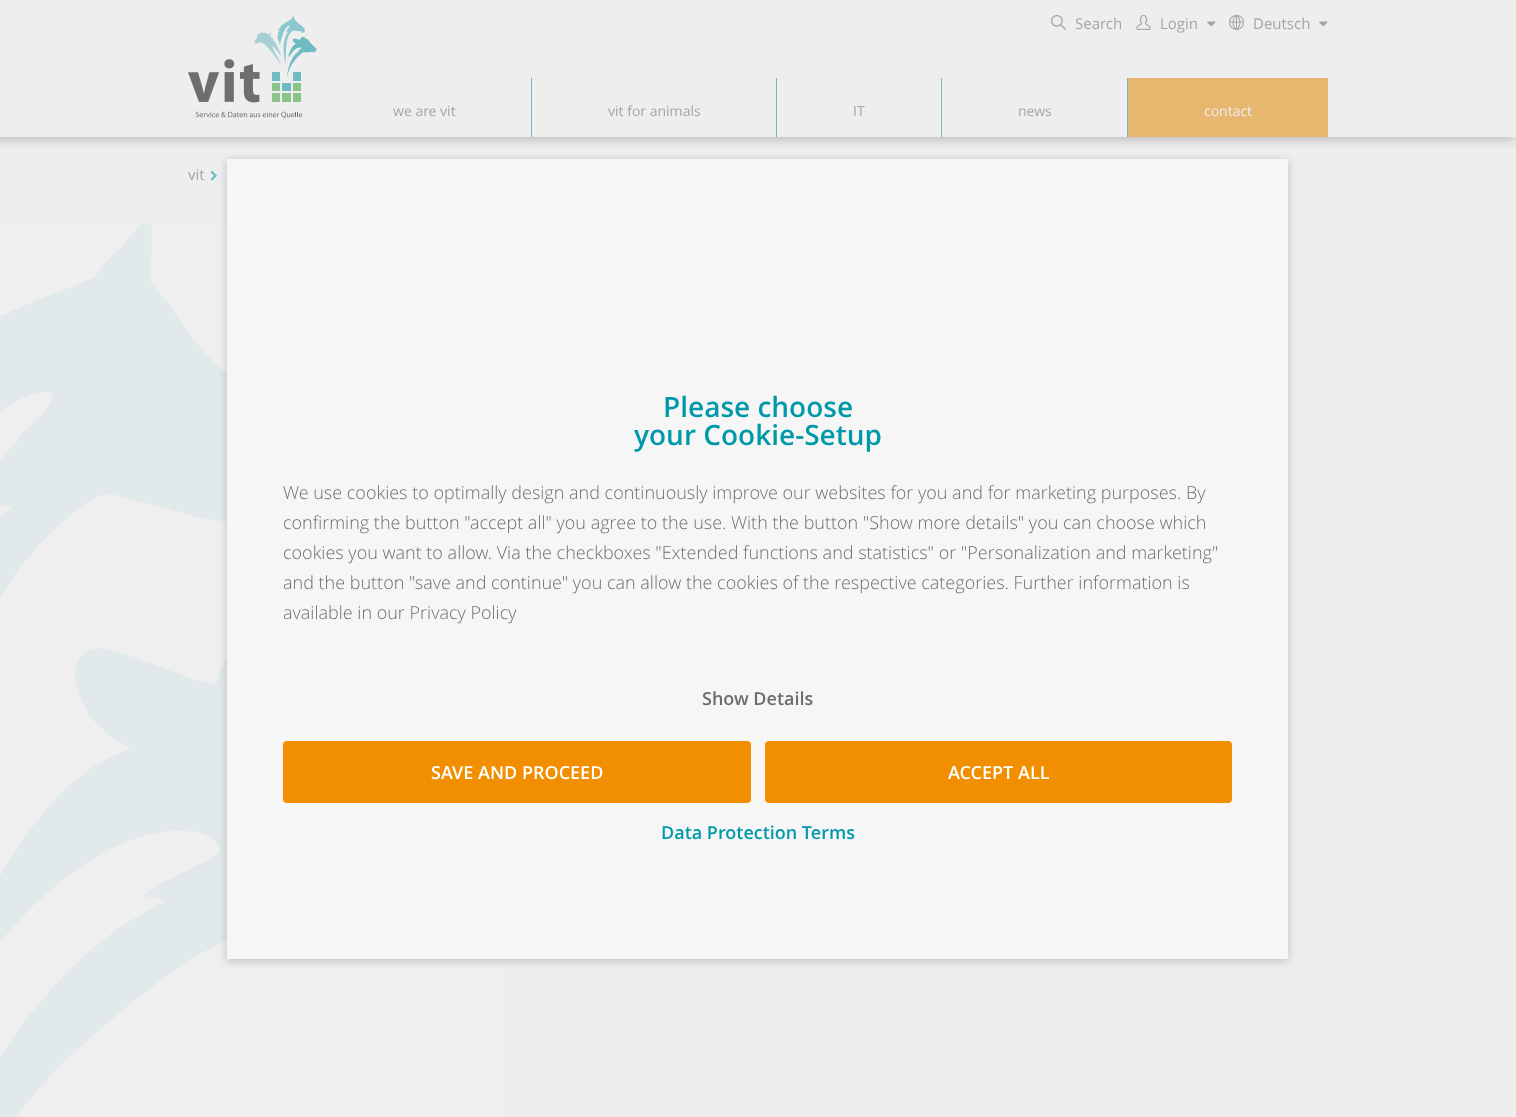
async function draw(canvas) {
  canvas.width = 1516;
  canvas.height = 1117;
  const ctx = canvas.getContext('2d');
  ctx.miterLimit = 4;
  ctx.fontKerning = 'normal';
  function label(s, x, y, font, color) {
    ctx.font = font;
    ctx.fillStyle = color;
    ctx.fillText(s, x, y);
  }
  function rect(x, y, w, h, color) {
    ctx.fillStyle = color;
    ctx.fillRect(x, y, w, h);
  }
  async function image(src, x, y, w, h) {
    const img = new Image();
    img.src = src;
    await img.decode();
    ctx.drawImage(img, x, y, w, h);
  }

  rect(0, 0, 1516, 1117, '#eee');
  ctx.save();
  ctx.beginPath();
  ctx.rect(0, 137, 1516, 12);
  ctx.clip();
  ctx.fillStyle = '#6f6f6f80';
  ctx.filter = 'blur(6.5px)';
  ctx.beginPath();
  ctx.rect(-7, -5, 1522, 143);
  ctx.fill();
  ctx.filter = 'none';
  ctx.restore();
  await image('assets/img1.png', 1051, 14, 15, 16);
  label('Search', 1075, 29, '15px Open Sans', '#a5a5a5');
  await image('assets/img2.png', 1136, 14, 15, 16);
  label('Login', 1160, 29, '15px Open Sans', '#a5a5a5');
  await image('assets/img3.png', 1207, 21, 9, 6);
  await image('assets/img4.png', 1229, 14, 15, 16);
  label('Deutsch', 1253, 29, '15px Open Sans', '#a5a5a5');
  await image('assets/img3.png', 1319, 21, 9, 6);
  await image('assets/img5.png', 188, 16, 129, 102);
  rect(531, 78, 1, 59, '#6fbbc4');
  label('we are vit', 393, 116, '14px Open Sans', '#a5a5a5');
  rect(776, 78, 1, 59, '#6fbbc4');
  label('vit for animals', 608, 116, '14px Open Sans', '#a5a5a5');
  rect(941, 78, 1, 59, '#6fbbc4');
  label('IT', 853, 116, '14px Open Sans', '#a5a5a5');
  rect(1127, 78, 1, 59, '#6fbbc4');
  label('news', 1018, 116, '14px Open Sans', '#a5a5a5');
  rect(1128, 78, 200, 59, '#e7b66f');
  label('contact', 1204, 116, '14px Open Sans', '#eee');
  await image('assets/img6.png', 0, 224, 504, 893);
  label('vit', 188, 180, '15px Open Sans', '#a5a5a5');
  await image('assets/img7.png', 210, 170, 7, 11);
  ctx.fillStyle = '#00000033';
  ctx.filter = 'blur(5px)';
  ctx.beginPath();
  ctx.rect(227, 161, 1061, 800);
  ctx.fill();
  ctx.filter = 'none';
  rect(227, 159, 1061, 800, '#f6f6f6');
  label('Please choose', 663, 417, '600 28px Open Sans', '#09a');
  label('your Cookie-Setup', 634, 445, '600 28px Open Sans', '#09a');
  label('We use cookies to optimally design and continuously improve our websites for you and for marketing purposes. By', 283, 499, '300 18px Open Sans', '#6d6d6d');
  label('confirming the button "accept all" you agree to the use. With the button "Show more details" you can choose which', 283, 529, '300 18px Open Sans', '#6d6d6d');
  label('cookies you want to allow. Via the checkboxes "Extended functions and statistics" or "Personalization and marketing"', 283, 559, '300 18px Open Sans', '#6d6d6d');
  label('and the button "save and continue" you can allow the cookies of the respective categories. Further information is', 283, 589, '300 18px Open Sans', '#6d6d6d');
  label('available in our Privacy Policy', 283, 619, '300 18px Open Sans', '#6d6d6d');
  label('Show Details', 702, 705, '600 18px Open Sans', '#6d6d6d');
  ctx.fillStyle = '#f18f00';
  ctx.beginPath();
  ctx.roundRect(284, 742, 466, 60, 3);
  ctx.fill();
  ctx.strokeStyle = '#f18f00';
  ctx.lineWidth = 2;
  ctx.stroke();
  label('SAVE AND PROCEED', 431, 779, '600 18px Open Sans', '#fff');
  ctx.fillStyle = '#f18f00';
  ctx.beginPath();
  ctx.roundRect(766, 742, 465, 60, 3);
  ctx.fill();
  ctx.stroke();
  label('ACCEPT ALL', 948, 779, '600 18px Open Sans', '#fff');
  label('Data Protection Terms', 661, 839, '600 18px Open Sans', '#09a');
}

draw(document.querySelector('canvas'));
